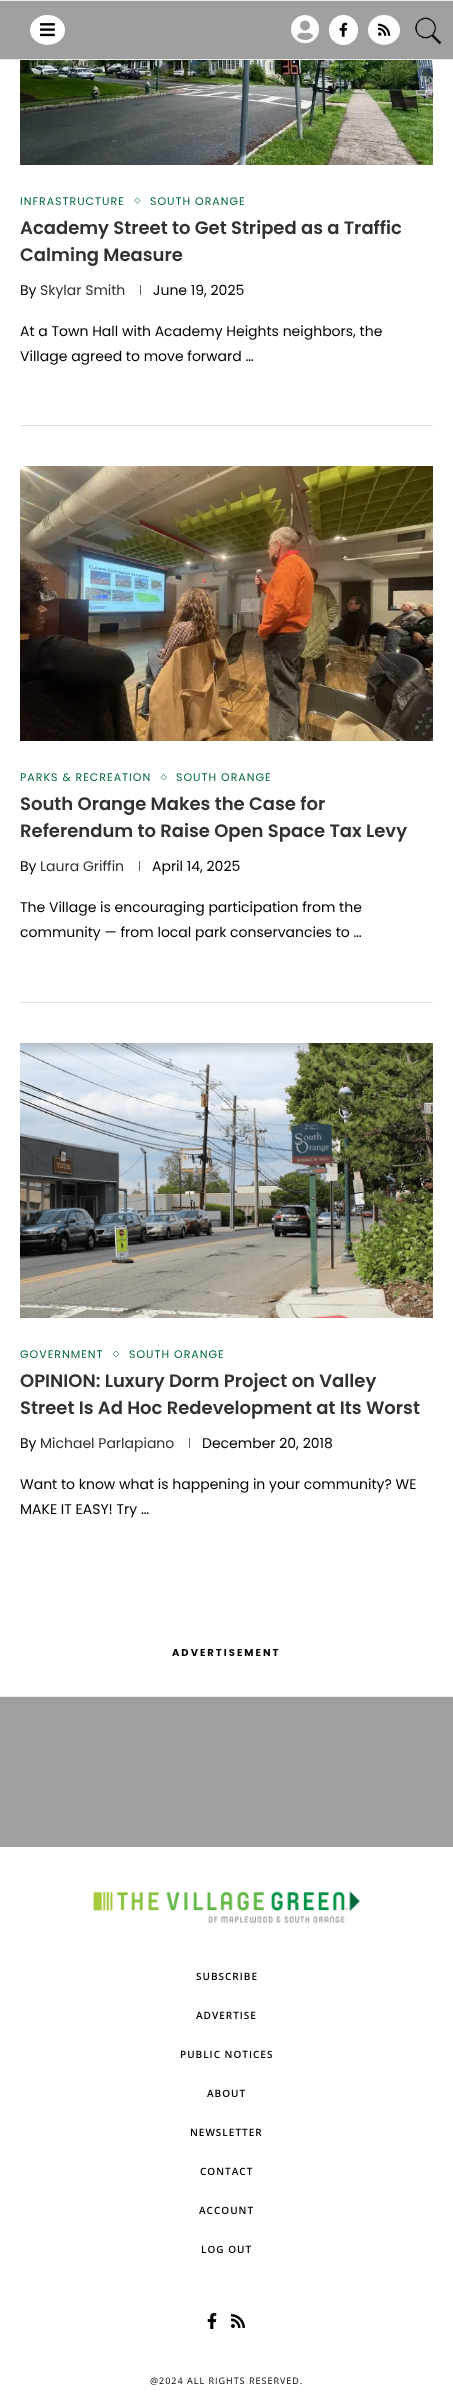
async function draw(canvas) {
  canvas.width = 453;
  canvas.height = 2400;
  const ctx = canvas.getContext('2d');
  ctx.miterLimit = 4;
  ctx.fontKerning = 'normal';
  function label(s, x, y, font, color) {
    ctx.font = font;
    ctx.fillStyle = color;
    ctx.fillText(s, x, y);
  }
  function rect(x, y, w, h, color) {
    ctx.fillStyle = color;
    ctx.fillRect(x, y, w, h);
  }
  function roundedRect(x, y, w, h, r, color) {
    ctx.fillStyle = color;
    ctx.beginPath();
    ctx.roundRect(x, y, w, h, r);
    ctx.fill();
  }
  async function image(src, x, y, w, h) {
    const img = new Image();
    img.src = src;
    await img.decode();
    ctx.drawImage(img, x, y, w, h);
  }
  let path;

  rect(0, 0, 453, 2400, '#fff');
  rect(0, 1, 453, 58, '#a0a0a0');
  rect(0, 0, 453, 1, '#ececec');
  rect(0, 59, 453, 1, '#ececec');
  ctx.fillStyle = '#fff';
  ctx.beginPath();
  ctx.ellipse(47.5, 30, 17.5, 15, 0, 0, 2 * Math.PI);
  ctx.fill();
  await image('assets/img1.png', 40, 23, 15, 14);
  await image('assets/img2.png', 291, 15, 29, 29);
  roundedRect(329, 15, 29, 30, 14.5, '#fff');
  await image('assets/img3.png', 339, 22, 9, 15);
  ctx.beginPath();
  ctx.ellipse(384, 30, 16, 15, 0, 0, 2 * Math.PI);
  ctx.fill();
  await image('assets/img4.png', 378, 23, 13, 13);
  await image('assets/img5.png', 415, 17, 27, 28);
  rect(20, 425, 413, 1, '#dedede');
  await image('assets/img6.png', 20, 60, 413, 105);
  ctx.letterSpacing = '1px';
  label('INFRASTRUCTURE', 20, 205, '11px Poppins', '#006838');
  path = new Path2D('M137.5 198L140 200.5L137.5 203.5L134.5 200.5Z');
  ctx.strokeStyle = '#599d7e';
  ctx.stroke(path);
  label('SOUTH ORANGE', 150, 205, '11px Poppins', '#006838');
  ctx.letterSpacing = '0px';
  label('Academy Street to Get Striped as a Traffic', 20, 234, '600 18px Poppins', '#313131');
  label('Calming Measure', 20, 261, '600 18px Poppins', '#313131');
  label('By', 20, 295, '14px Poppins', '#000');
  label('Skylar Smith', 40, 295, '14px Poppins', '#313131');
  rect(140, 285, 1, 10, '#666');
  label('June 19, 2025', 153, 295, '14px Poppins', '#000');
  label('At a Town Hall with Academy Heights neighbors, the', 20, 336, '14px Poppins', '#000');
  label('Village agreed to move forward …', 20, 361, '14px Poppins', '#000');
  rect(20, 1002, 413, 1, '#dedede');
  await image('assets/img7.png', 20, 466, 413, 275);
  ctx.letterSpacing = '1px';
  label('PARKS & RECREATION', 20, 781, '11px Poppins', '#006838');
  path = new Path2D('M163.5 774.5L166.5 777.5L163.5 780L161 777.5Z');
  ctx.stroke(path);
  label('SOUTH ORANGE', 176, 781, '11px Poppins', '#006838');
  ctx.letterSpacing = '0px';
  label('South Orange Makes the Case for', 20, 810, '600 18px Poppins', '#313131');
  label('Referendum to Raise Open Space Tax Levy', 20, 837, '600 18px Poppins', '#313131');
  label('By', 20, 871, '14px Poppins', '#000');
  label('Laura Griffin', 40, 871, '14px Poppins', '#313131');
  rect(139, 861, 1, 10, '#666');
  label('April 14, 2025', 152, 871, '14px Poppins', '#000');
  label('The Village is encouraging participation from the', 20, 912, '14px Poppins', '#000');
  label('community — from local park conservancies to …', 20, 937, '14px Poppins', '#000');
  await image('assets/img8.png', 20, 1043, 413, 275);
  ctx.letterSpacing = '1px';
  label('GOVERNMENT', 20, 1358, '11px Poppins', '#006838');
  path = new Path2D('M116 1351L119 1354L116 1357L113 1354Z');
  ctx.stroke(path);
  label('SOUTH ORANGE', 129, 1358, '11px Poppins', '#006838');
  ctx.letterSpacing = '0px';
  label('OPINION: Luxury Dorm Project on Valley', 20, 1387, '600 18px Poppins', '#313131');
  label('Street Is Ad Hoc Redevelopment at Its Worst', 20, 1414, '600 18px Poppins', '#313131');
  label('By', 20, 1448, '14px Poppins', '#000');
  label('Michael Parlapiano', 40, 1448, '14px Poppins', '#313131');
  rect(189, 1438, 1, 10, '#666');
  label('December 20, 2018', 202, 1448, '14px Poppins', '#000');
  label('Want to know what is happening in your community? WE', 20, 1489, '14px Poppins', '#000');
  label('MAKE IT EASY! Try …', 20, 1514, '14px Poppins', '#000');
  ctx.letterSpacing = '2px';
  label('ADVERTISEMENT', 172, 1656, 'bold 10px Poppins', '#000');
  rect(0, 1697, 453, 150, '#a0a0a0');
  rect(0, 1696, 453, 1, '#ececec');
  await image('assets/img9.png', 93, 1891, 267, 33);
  ctx.letterSpacing = '1px';
  label('SUBSCRIBE', 196, 1980, '600 10px Open Sans', '#000');
  label('ADVERTISE', 196, 2019, '600 10px Open Sans', '#000');
  label('PUBLIC NOTICES', 180, 2058, '600 10px Open Sans', '#000');
  label('ABOUT', 207, 2097, '600 10px Open Sans', '#000');
  label('NEWSLETTER', 190, 2136, '600 10px Open Sans', '#000');
  label('CONTACT', 200, 2175, '600 10px Open Sans', '#000');
  label('ACCOUNT', 199, 2214, '600 10px Open Sans', '#000');
  label('LOG OUT', 201, 2253, '600 10px Open Sans', '#000');
  await image('assets/img10.png', 207, 2313, 10, 16);
  await image('assets/img11.png', 231, 2314, 14, 14);
  label('@2024 ALL RIGHTS RESERVED.', 150, 2384, '9px Open Sans', '#000');
}

draw(document.querySelector('canvas'));
